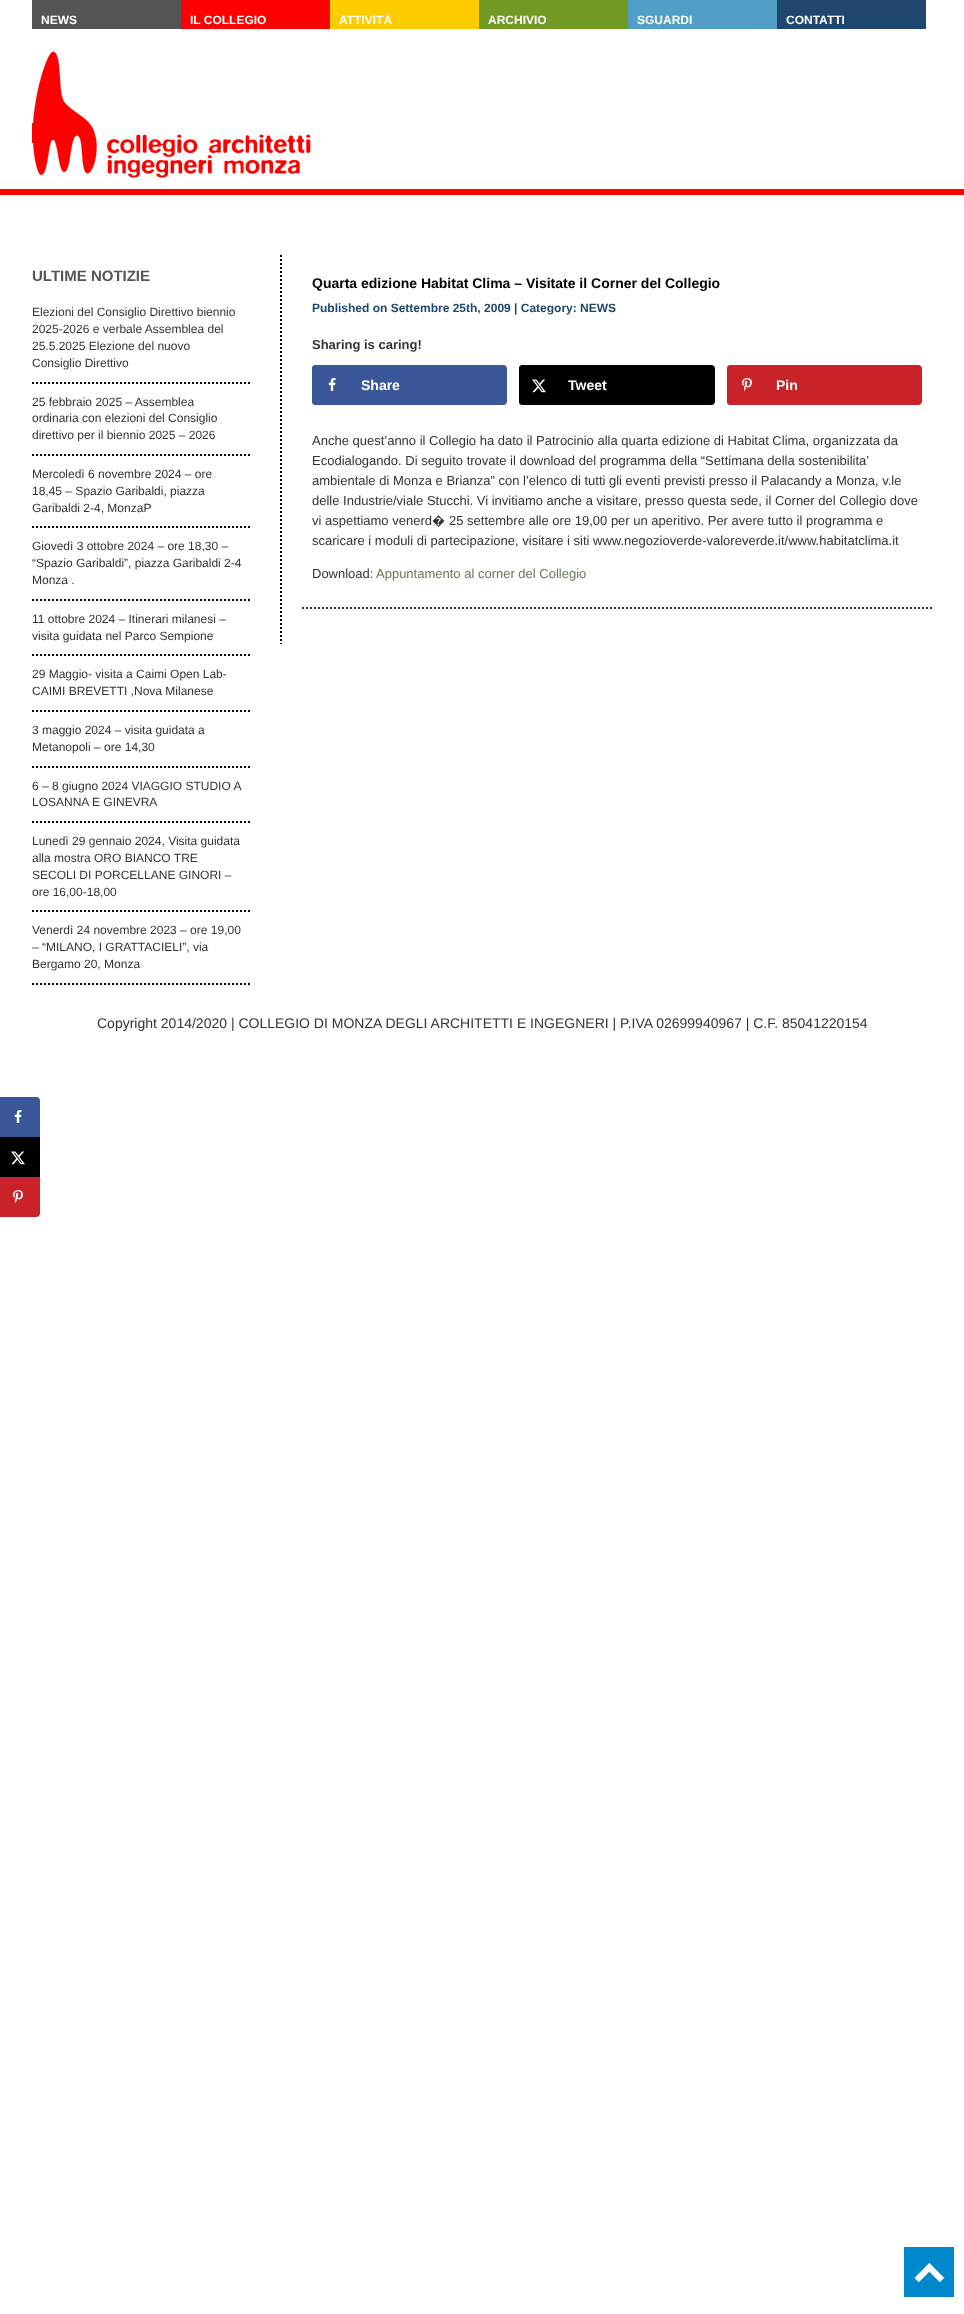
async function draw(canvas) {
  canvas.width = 964;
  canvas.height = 2314;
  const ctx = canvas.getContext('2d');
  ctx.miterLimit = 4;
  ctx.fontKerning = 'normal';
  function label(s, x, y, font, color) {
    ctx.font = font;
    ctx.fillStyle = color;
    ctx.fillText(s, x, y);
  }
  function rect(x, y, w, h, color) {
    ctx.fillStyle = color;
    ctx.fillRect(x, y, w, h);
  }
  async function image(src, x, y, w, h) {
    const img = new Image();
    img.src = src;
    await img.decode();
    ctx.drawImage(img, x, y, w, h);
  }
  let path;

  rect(0, 0, 964, 2314, '#fff');
  rect(32, 0, 149, 29, '#555');
  label('NEWS', 41, 24, 'bold 12px Liberation Sans', '#fff');
  rect(181, 0, 149, 29, '#f00');
  label('IL COLLEGIO', 190, 24, 'bold 12px Liberation Sans', '#fff');
  rect(330, 0, 149, 29, '#fc0');
  label('ATTIVITÀ', 339, 24, 'bold 12px Liberation Sans', '#fff');
  rect(479, 0, 149, 29, '#729922');
  label('ARCHIVIO', 488, 24, 'bold 12px Liberation Sans', '#fff');
  rect(628, 0, 149, 29, '#519fc6');
  label('SGUARDI', 637, 24, 'bold 12px Liberation Sans', '#fff');
  rect(777, 0, 149, 29, '#1f466e');
  label('CONTATTI', 786, 24, 'bold 12px Liberation Sans', '#fff');
  rect(0, 189, 964, 6, '#f00');
  await image('assets/img1.png', 32, 51, 279, 127);
  label('ULTIME NOTIZIE', 32, 281, 'bold 15px Liberation Sans', '#555');
  path = new Path2D('M32 383H252');
  ctx.strokeStyle = '#000';
  ctx.lineWidth = 2;
  ctx.setLineDash([2, 2]);
  ctx.stroke(path);
  label('Elezioni del Consiglio Direttivo biennio', 32, 316, '12px Liberation Sans', '#333');
  label('2025-2026 e verbale Assemblea del', 32, 333, '12px Liberation Sans', '#333');
  label('25.5.2025 Elezione del nuovo', 32, 350, '12px Liberation Sans', '#333');
  label('Consiglio Direttivo', 32, 367, '12px Liberation Sans', '#333');
  path = new Path2D('M32 455H252');
  ctx.stroke(path);
  label('25 febbraio 2025 – Assemblea', 32, 406, '12px Liberation Sans', '#333');
  label('ordinaria con elezioni del Consiglio', 32, 422, '12px Liberation Sans', '#333');
  label('direttivo per il biennio 2025 – 2026', 32, 439, '12px Liberation Sans', '#333');
  path = new Path2D('M32 527H252');
  ctx.stroke(path);
  label('Mercoledì 6 novembre 2024 – ore', 32, 478, '12px Liberation Sans', '#333');
  label('18,45 – Spazio Garibaldi, piazza', 32, 495, '12px Liberation Sans', '#333');
  label('Garibaldi 2-4, MonzaP', 32, 512, '12px Liberation Sans', '#333');
  path = new Path2D('M32 600H252');
  ctx.stroke(path);
  label('Giovedì 3 ottobre 2024 – ore 18,30 –', 32, 550, '12px Liberation Sans', '#333');
  label('“Spazio Garibaldi”, piazza Garibaldi 2-4', 32, 567, '12px Liberation Sans', '#333');
  label('Monza .', 32, 584, '12px Liberation Sans', '#333');
  path = new Path2D('M32 655H252');
  ctx.stroke(path);
  label('11 ottobre 2024 – Itinerari milanesi –', 32, 623, '12px Liberation Sans', '#333');
  label('visita guidata nel Parco Sempione', 32, 640, '12px Liberation Sans', '#333');
  path = new Path2D('M32 711H252');
  ctx.stroke(path);
  label('29 Maggio- visita a Caimi Open Lab-', 32, 678, '12px Liberation Sans', '#333');
  label('CAIMI BREVETTI ,Nova Milanese', 32, 695, '12px Liberation Sans', '#333');
  path = new Path2D('M32 767H252');
  ctx.stroke(path);
  label('3 maggio 2024 – visita guidata a', 32, 734, '12px Liberation Sans', '#333');
  label('Metanopoli – ore 14,30', 32, 751, '12px Liberation Sans', '#333');
  path = new Path2D('M32 822H252');
  ctx.stroke(path);
  label('6 – 8 giugno 2024 VIAGGIO STUDIO A', 32, 790, '12px Liberation Sans', '#333');
  label('LOSANNA E GINEVRA', 32, 806, '12px Liberation Sans', '#333');
  path = new Path2D('M32 911H252');
  ctx.stroke(path);
  label('Lunedì 29 gennaio 2024, Visita guidata', 32, 845, '12px Liberation Sans', '#333');
  label('alla mostra ORO BIANCO TRE', 32, 862, '12px Liberation Sans', '#333');
  label('SECOLI DI PORCELLANE GINORI –', 32, 879, '12px Liberation Sans', '#333');
  label('ore 16,00-18,00', 32, 896, '12px Liberation Sans', '#333');
  path = new Path2D('M32 984H252');
  ctx.stroke(path);
  label('Venerdì 24 novembre 2023 – ore 19,00', 32, 934, '12px Liberation Sans', '#333');
  label('– “MILANO, I GRATTACIELI”, via', 32, 951, '12px Liberation Sans', '#333');
  label('Bergamo 20, Monza', 32, 968, '12px Liberation Sans', '#333');
  path = new Path2D('M281 255V644');
  ctx.stroke(path);
  path = new Path2D('M302 608H932');
  ctx.strokeStyle = '#333';
  ctx.stroke(path);
  label('Quarta edizione Habitat Clima – Visitate il Corner del Collegio', 312, 288, 'bold 14px Liberation Sans', '#000');
  label('Published on Settembre 25th, 2009 | Category: NEWS', 312, 312, 'bold 12px Liberation Sans', '#1f466e');
  label('Sharing is caring!', 312, 349, 'bold 13px Liberation Sans', '#333');
  ctx.fillStyle = '#3a579a';
  ctx.beginPath();
  ctx.roundRect(313, 366, 193, 38, 3);
  ctx.fill();
  ctx.strokeStyle = '#3a579a';
  ctx.setLineDash([]);
  ctx.stroke();
  ctx.beginPath();
  ctx.roundRect(313, 366, 38, 38, [3, 0, 0, 3]);
  ctx.fill();
  ctx.stroke();
  await image('assets/img2.png', 328, 378, 8, 13);
  label('Share', 361, 390, 'bold 14px Liberation Sans', '#fff');
  ctx.fillStyle = '#000';
  ctx.beginPath();
  ctx.roundRect(520, 366, 194, 38, 3);
  ctx.fill();
  ctx.strokeStyle = '#000';
  ctx.stroke();
  ctx.beginPath();
  ctx.roundRect(520, 366, 38, 38, [3, 0, 0, 3]);
  ctx.fill();
  ctx.stroke();
  await image('assets/img3.png', 532, 379, 14, 14);
  label('Tweet', 568, 390, 'bold 14px Liberation Sans', '#fff');
  ctx.fillStyle = '#c92228';
  ctx.beginPath();
  ctx.roundRect(728, 366, 193, 38, 3);
  ctx.fill();
  ctx.strokeStyle = '#c92228';
  ctx.stroke();
  ctx.beginPath();
  ctx.roundRect(728, 366, 38, 38, [3, 0, 0, 3]);
  ctx.fill();
  ctx.stroke();
  await image('assets/img4.png', 742, 378, 10, 13);
  label('Pin', 776, 390, 'bold 14px Liberation Sans', '#fff');
  label('Anche quest’anno il Collegio ha dato il Patrocinio alla quarta edizione di Habitat Clima, organizzata da', 312, 445, '13px Liberation Sans', '#333');
  label('Ecodialogando. Di seguito trovate il download del programma della “Settimana della sostenibilita’', 312, 465, '13px Liberation Sans', '#333');
  label('ambientale di Monza e Brianza” con l’elenco di tutti gli eventi previsti presso il Palacandy a Monza, v.le', 312, 485, '13px Liberation Sans', '#333');
  label('delle Industrie/viale Stucchi. Vi invitiamo anche a visitare, presso questa sede, il Corner del Collegio dove', 312, 505, '13px Liberation Sans', '#333');
  label('vi aspettiamo venerd', 312, 525, '13px Liberation Sans', '#333');
  label('�', 432, 525, '13px Noto Sans', '#333');
  label('25 settembre alle ore 19,00 per un aperitivo. Per avere tutto il programma e', 449, 525, '13px Liberation Sans', '#333');
  label('scaricare i moduli di partecipazione, visitare i siti www.negozioverde-valoreverde.it/www.habitatclima.it', 312, 545, '13px Liberation Sans', '#333');
  label('Download:', 312, 578, '13px Liberation Sans', '#333');
  label('Appuntamento al corner del Collegio', 376, 578, '13px Liberation Sans', '#675');
  rect(904, 2247, 50, 50, '#08c');
  await image('assets/img5.png', 914, 2263, 31, 19);
  label('Copyright 2014/2020 | COLLEGIO DI MONZA DEGLI ARCHITETTI E INGEGNERI | P.IVA 02699940967 | C.F. 85041220154', 97, 1028, '14px Liberation Sans', '#333');
  ctx.fillStyle = '#3a579a';
  ctx.beginPath();
  ctx.roundRect(1, 1098, 38, 38, [0, 3, 0, 0]);
  ctx.fill();
  ctx.strokeStyle = '#3a579a';
  ctx.stroke();
  await image('assets/img2.png', 14, 1110, 8, 13);
  rect(0, 1137, 40, 40, '#000');
  await image('assets/img3.png', 11, 1151, 14, 14);
  ctx.fillStyle = '#c92228';
  ctx.beginPath();
  ctx.roundRect(1, 1178, 38, 38, [0, 0, 3, 0]);
  ctx.fill();
  ctx.strokeStyle = '#c92228';
  ctx.stroke();
  await image('assets/img4.png', 13, 1190, 10, 13);
}

draw(document.querySelector('canvas'));
